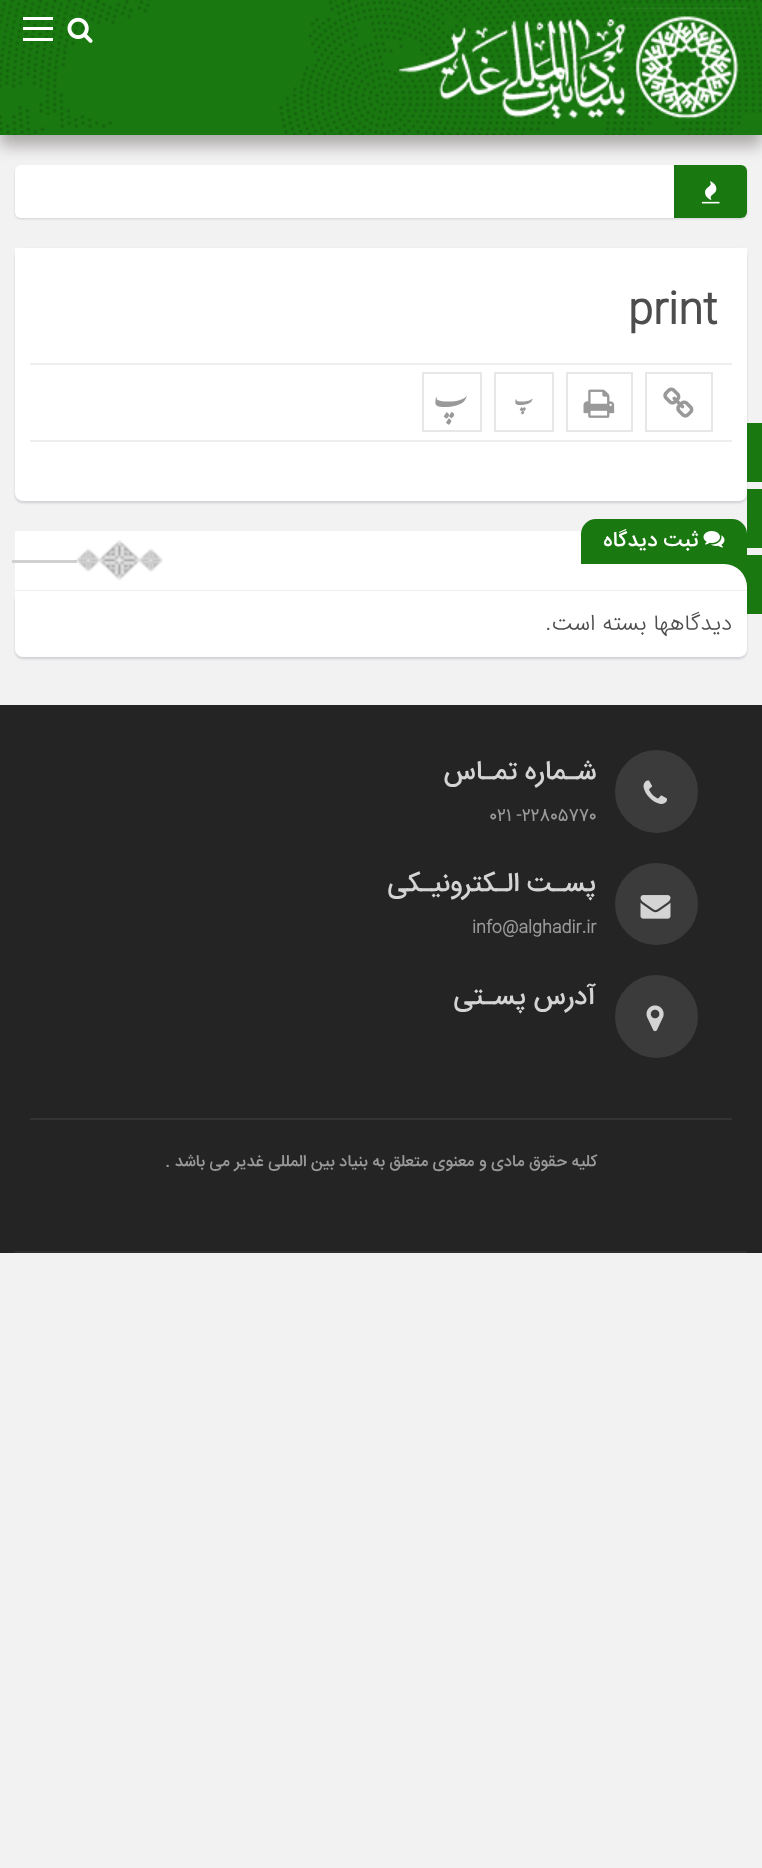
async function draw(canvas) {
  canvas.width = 762;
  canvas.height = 1868;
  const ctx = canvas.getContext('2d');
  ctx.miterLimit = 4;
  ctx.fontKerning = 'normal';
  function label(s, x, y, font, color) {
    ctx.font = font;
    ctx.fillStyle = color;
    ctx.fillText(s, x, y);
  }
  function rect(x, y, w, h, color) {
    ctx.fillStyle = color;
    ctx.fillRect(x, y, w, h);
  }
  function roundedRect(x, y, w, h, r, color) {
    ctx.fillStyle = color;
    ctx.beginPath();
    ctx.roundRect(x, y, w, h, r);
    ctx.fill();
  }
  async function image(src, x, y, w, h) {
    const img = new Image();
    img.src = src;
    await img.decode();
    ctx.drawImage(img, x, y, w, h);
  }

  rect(0, 0, 762, 1868, '#f2f2f2');
  ctx.fillStyle = '#1c254029';
  ctx.filter = 'blur(1px)';
  ctx.beginPath();
  ctx.roundRect(15, 167, 732, 52, 6);
  ctx.fill();
  ctx.filter = 'none';
  roundedRect(15, 165, 732, 53, 6, '#fff');
  ctx.fillStyle = '#197810';
  ctx.beginPath();
  ctx.roundRect(674, 165, 73, 53, [0, 6, 6, 0]);
  ctx.fill();
  rect(674, 165, 2, 53, '#187410');
  ctx.fillStyle = '#6b61617d';
  ctx.filter = 'blur(7.5px)';
  ctx.beginPath();
  ctx.rect(0, 11, 762, 135);
  ctx.fill();
  ctx.filter = 'none';
  rect(0, 0, 762, 135, '#197810');
  await image('assets/img1.png', 0, 0, 762, 135);
  await image('assets/img2.png', 398, 7, 349, 112);
  await image('assets/img3.png', 67, 17, 26, 26);
  rect(23, 17, 30, 3, '#fff');
  rect(23, 27, 30, 3, '#fff');
  rect(23, 38, 30, 3, '#fff');
  ctx.fillStyle = '#1c254029';
  ctx.filter = 'blur(1px)';
  ctx.beginPath();
  ctx.roundRect(15, 249, 732, 254, 8);
  ctx.fill();
  ctx.filter = 'none';
  rect(747, 423, 15, 59, '#197810');
  rect(747, 489, 15, 59, '#197810');
  rect(15, 531, 732, 59, '#fff');
  rect(15, 590, 732, 1, '#eee');
  ctx.fillStyle = '#1c254029';
  ctx.filter = 'blur(1px)';
  ctx.beginPath();
  ctx.roundRect(15, 593, 732, 66, 8);
  ctx.fill();
  ctx.filter = 'none';
  rect(747, 555, 15, 59, '#197810');
  await image('assets/img4.png', 701, 181, 19, 23);
  ctx.fillStyle = '#fff';
  ctx.beginPath();
  ctx.roundRect(15, 248, 732, 253, [0, 0, 8, 8]);
  ctx.fill();
  label('print', 628, 324, 'bold 45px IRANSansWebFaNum', '#4d4d4d');
  rect(30, 363, 702, 2, '#eee');
  rect(30, 440, 702, 2, '#eee');
  ctx.strokeStyle = '#e6e7e7';
  ctx.lineWidth = 2;
  ctx.strokeRect(646, 373, 66, 58);
  await image('assets/img5.png', 663, 387, 31, 31);
  ctx.strokeRect(567, 373, 65, 58);
  await image('assets/img6.png', 583, 389, 32, 29);
  ctx.strokeRect(495, 373, 58, 58);
  ctx.direction = 'rtl';
  label('پ', 532, 405, 'bold 18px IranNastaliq', '#999');
  ctx.strokeRect(423, 373, 58, 58);
  label('پ', 467, 407, '34px IranNastaliq', '#999');
  await image('assets/img7.png', 76, 540, 87, 41);
  ctx.fillStyle = '#197810';
  ctx.beginPath();
  ctx.roundRect(581, 519, 166, 68, [15, 15, 0, 0]);
  ctx.fill();
  await image('assets/img8.png', 703, 531, 22, 17);
  label('ثبت دیدگاه', 698, 546, '500 21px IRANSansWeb', '#fff');
  ctx.beginPath();
  ctx.roundRect(581, 564, 166, 23, [0, 23, 0, 0]);
  ctx.fill();
  rect(12, 560, 65, 3, '#d0d0d0');
  ctx.fillStyle = '#fff';
  ctx.beginPath();
  ctx.roundRect(15, 591, 732, 66, [0, 0, 8, 8]);
  ctx.fill();
  label('دیدگاهها بسته است.', 732, 630, '300 22.5px IRANSansWebFaNum', '#4d4d4d');
  rect(0, 705, 762, 548, '#242424');
  rect(15, 1251, 732, 2, '#2f2f2f');
  rect(30, 1118, 702, 2, '#333');
  ctx.fillStyle = '#3b3b3b';
  ctx.beginPath();
  ctx.arc(656.5, 791.5, 40, 0, 2 * Math.PI);
  ctx.fill();
  ctx.strokeStyle = '#3b3b3b';
  ctx.lineWidth = 3;
  ctx.stroke();
  await image('assets/img9.png', 643, 780, 24, 24);
  label('شـماره تمـاس', 596, 779, '500 27px IRANSansWeb', '#d4d4d4');
  ctx.direction = 'ltr';
  label('021 -22805770', 489, 821, 'bold 18px IRANSansWebFaNum', '#999');
  ctx.fillStyle = '#3b3b3b';
  ctx.beginPath();
  ctx.roundRect(616.5, 864.5, 80, 79, 39.5);
  ctx.fill();
  ctx.stroke();
  await image('assets/img10.png', 640, 895, 31, 24);
  ctx.direction = 'rtl';
  label('پسـت الـکترونیـکی', 596, 891, '500 27px IRANSansWeb', '#d4d4d4');
  ctx.direction = 'ltr';
  label('info@alghadir.ir', 472, 933, 'bold 18px IRANSansWebFaNum', '#999');
  ctx.fillStyle = '#3b3b3b';
  ctx.beginPath();
  ctx.arc(656.5, 1016.5, 40, 0, 2 * Math.PI);
  ctx.fill();
  ctx.stroke();
  await image('assets/img11.png', 646, 1005, 18, 27);
  ctx.direction = 'rtl';
  label('آدرس پسـتی', 596, 1004, '500 27px IRANSansWeb', '#d4d4d4');
  label('کلیه حقوق مادی و معنوی متعلق به بنیاد بین المللی غدیر می باشد .', 597, 1166, '500 16.5px IRANSansWeb', '#999');
}

draw(document.querySelector('canvas'));
